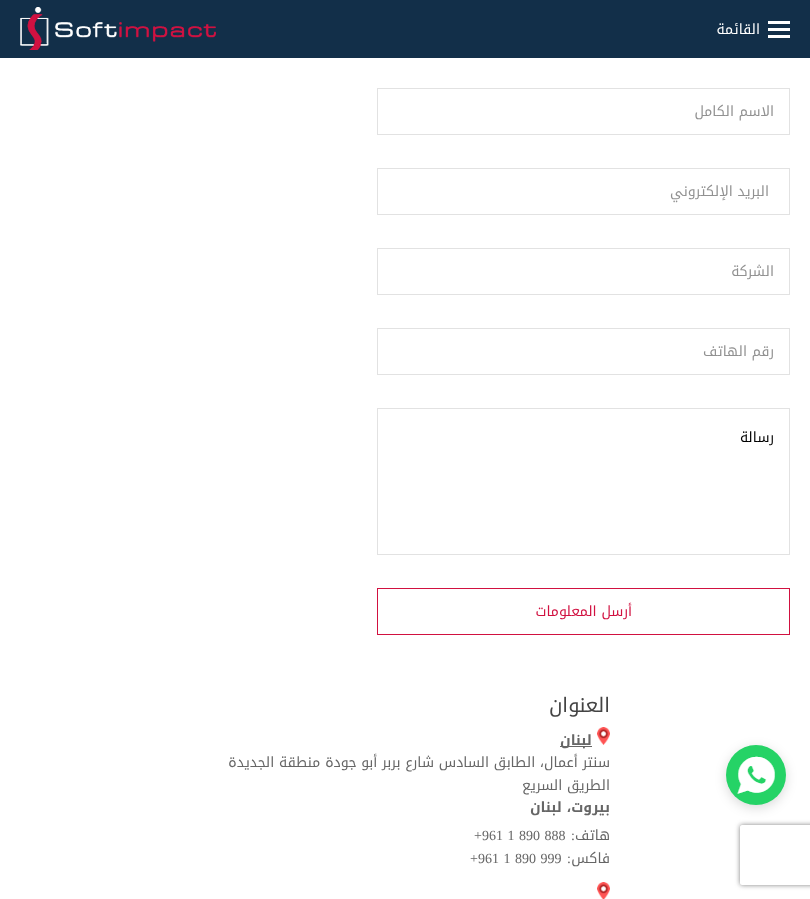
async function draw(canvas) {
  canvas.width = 810;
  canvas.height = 899;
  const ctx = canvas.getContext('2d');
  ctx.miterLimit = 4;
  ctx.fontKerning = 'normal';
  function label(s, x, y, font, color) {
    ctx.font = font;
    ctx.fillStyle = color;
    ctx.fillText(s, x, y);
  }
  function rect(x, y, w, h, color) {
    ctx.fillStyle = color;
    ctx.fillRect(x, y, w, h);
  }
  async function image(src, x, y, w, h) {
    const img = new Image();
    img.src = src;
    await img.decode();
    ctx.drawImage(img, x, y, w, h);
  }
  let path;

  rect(0, 0, 810, 899, '#fff');
  rect(0, 0, 810, 58, '#122f49');
  rect(768, 21, 22, 3, '#fff');
  rect(768, 28, 22, 3, '#fff');
  ctx.direction = 'rtl';
  label('القائمة', 760, 34, '14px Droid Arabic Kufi', '#fff');
  rect(768, 35, 22, 3, '#fff');
  await image('assets/img1.png', 20, 7, 196, 43);
  ctx.strokeStyle = '#e2e2e2';
  ctx.strokeRect(377.5, 88.5, 412, 46);
  label('الاسم الكامل', 774, 116, '14px Droid Arabic Kufi', '#919191');
  ctx.strokeRect(377.5, 168.5, 412, 46);
  label('البريد الإلكتروني', 769, 196, '14px Droid Arabic Kufi', '#919191');
  ctx.strokeRect(377.5, 248.5, 412, 46);
  label('الشركة', 774, 276, '14px Droid Arabic Kufi', '#919191');
  ctx.strokeRect(377.5, 328.5, 412, 46);
  label('رقم الهاتف', 774, 356, '14px Droid Arabic Kufi', '#919191');
  ctx.strokeRect(377.5, 408.5, 412, 146);
  label('رسالة', 774, 442, '14px Droid Arabic Kufi', '#000');
  ctx.strokeStyle = '#d11140';
  ctx.strokeRect(377.5, 588.5, 412, 46);
  label('أرسل المعلومات', 632, 616, '14px Droid Arabic Kufi', '#d11140');
  label('العنوان', 610, 712, '20px Droid Arabic Kufi', '#444');
  await image('assets/img2.png', 597, 727, 13, 18);
  rect(560, 746, 32, 1, '#666');
  label('لبنان', 592, 745, 'bold 14px Droid Arabic Kufi', '#666');
  label('سنتر أعمال، الطابق السادس شارع بربر أبو جودة منطقة الجديدة', 610, 767, '14px Droid Arabic Kufi', '#666');
  label('الطريق السريع', 610, 790, '14px Droid Arabic Kufi', '#666');
  label('بيروت، لبنان', 610, 812, 'bold 14px Droid Arabic Kufi', '#666');
  label('هاتف', 610, 840, '14px Droid Arabic Kufi', '#666');
  label(':', 575, 840, '14px Liberation Serif', '#666');
  ctx.wordSpacing = '1px';
  ctx.direction = 'ltr';
  label('+961 1 890 888', 474, 840, '14px Liberation Serif', '#666');
  ctx.wordSpacing = '0px';
  ctx.direction = 'rtl';
  label('فاكس', 610, 863, '14px Droid Arabic Kufi', '#666');
  label(':', 571, 863, '14px Liberation Serif', '#666');
  ctx.wordSpacing = '1px';
  ctx.direction = 'ltr';
  label('+961 1 890 999', 470, 863, '14px Liberation Serif', '#666');
  await image('assets/img3.png', 597, 882, 13, 17);
  ctx.fillStyle = '#00000026';
  ctx.filter = 'blur(6px)';
  ctx.beginPath();
  ctx.roundRect(726, 748, 60, 60, 30);
  ctx.fill();
  ctx.filter = 'none';
  ctx.fillStyle = '#25d366';
  ctx.beginPath();
  ctx.arc(756, 775, 30, 0, 2 * Math.PI);
  ctx.fill();
  await image('assets/img4.png', 737, 756, 38, 38);
  ctx.save();
  path = new Path2D('M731 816H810V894H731ZM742 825H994C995 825 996 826 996 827V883C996 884 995 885 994 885H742C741 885 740 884 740 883V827C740 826 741 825 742 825Z');
  ctx.clip(path, 'evenodd');
  ctx.fillStyle = '#808080';
  ctx.filter = 'blur(2.5px)';
  ctx.beginPath();
  ctx.roundRect(740, 825, 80, 60, 2);
  ctx.fill();
  ctx.filter = 'none';
  ctx.restore();
}

draw(document.querySelector('canvas'));
